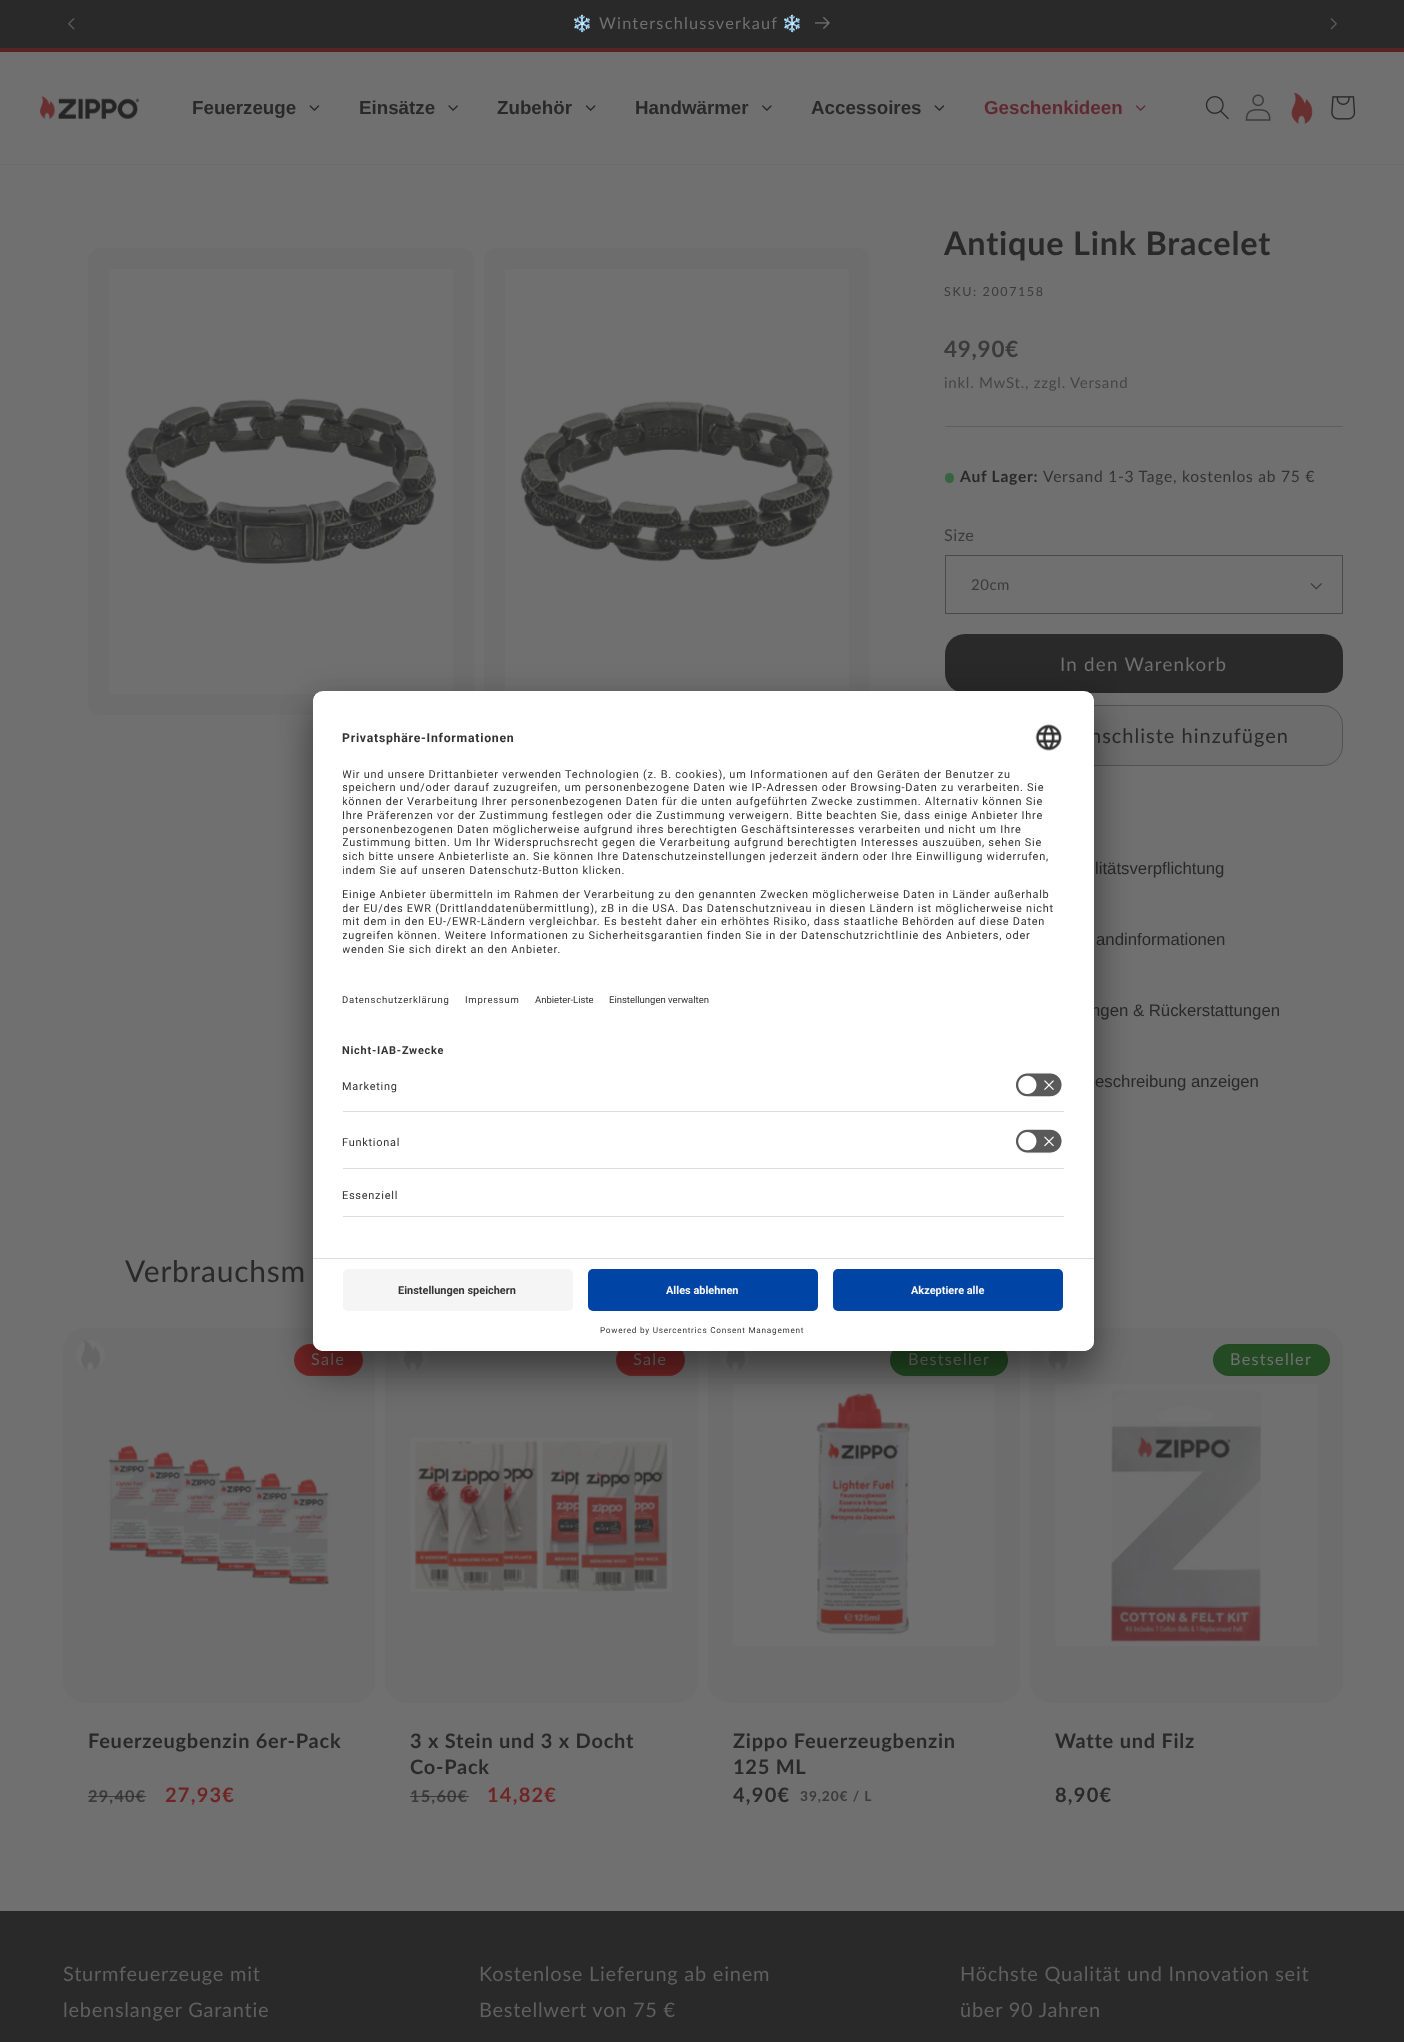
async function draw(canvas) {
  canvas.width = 1404;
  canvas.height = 2042;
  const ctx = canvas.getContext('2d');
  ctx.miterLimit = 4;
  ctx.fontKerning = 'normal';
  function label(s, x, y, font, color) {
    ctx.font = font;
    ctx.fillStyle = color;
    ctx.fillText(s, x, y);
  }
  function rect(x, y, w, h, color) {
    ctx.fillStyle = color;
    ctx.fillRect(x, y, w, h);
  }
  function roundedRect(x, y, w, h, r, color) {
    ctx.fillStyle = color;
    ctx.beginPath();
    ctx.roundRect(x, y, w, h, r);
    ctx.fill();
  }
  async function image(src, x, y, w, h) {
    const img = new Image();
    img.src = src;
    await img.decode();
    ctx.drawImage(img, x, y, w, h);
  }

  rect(0, 0, 1404, 2042, '#707070');
  rect(0, 0, 1404, 48, '#292929');
  rect(0, 48, 1404, 4, '#572424');
  await image('assets/img1.png', 68, 18, 7, 12);
  ctx.letterSpacing = '1.25px';
  label('❄️', 572, 29, '16.25px Noto Color Emoji', '#707070');
  label('Winterschlussverkauf', 599, 29, '16.25px Lato', '#707070');
  label('❄️', 782, 29, '16.25px Noto Color Emoji', '#707070');
  await image('assets/img2.png', 815, 16, 15, 13);
  await image('assets/img3.png', 1330, 18, 7, 12);
  rect(0, 164, 1404, 1, '#6b6b6b');
  await image('assets/img4.png', 40, 96, 99, 23);
  ctx.letterSpacing = '0px';
  label('Feuerzeuge', 192, 114, 'bold 18.75px Liberation Sans', '#292929');
  await image('assets/img5.png', 309, 105, 11, 6);
  label('Einsätze', 359, 114, 'bold 18.75px Liberation Sans', '#292929');
  await image('assets/img6.png', 448, 105, 10, 6);
  label('Zubehör', 497, 114, 'bold 18.75px Liberation Sans', '#292929');
  await image('assets/img7.png', 585, 105, 11, 6);
  label('Handwärmer', 635, 114, 'bold 18.75px Liberation Sans', '#292929');
  await image('assets/img8.png', 762, 105, 10, 6);
  label('Accessoires', 811, 114, 'bold 18.75px Liberation Sans', '#292929');
  await image('assets/img5.png', 934, 105, 11, 6);
  label('Geschenkideen', 984, 114, 'bold 18.75px Liberation Sans', '#602932');
  await image('assets/img9.png', 1135, 105, 11, 6);
  await image('assets/img10.png', 1205, 96, 24, 24);
  await image('assets/img11.png', 1245, 94, 26, 27);
  await image('assets/img12.png', 1291, 93, 22, 31);
  await image('assets/img13.png', 1331, 96, 25, 24);
  roundedRect(88, 248, 386, 467, 13, '#6d6d6d');
  rect(109, 269, 344, 425, '#707070');
  await image('assets/img14.png', 125, 398, 312, 166);
  roundedRect(484, 248, 386, 467, 13, '#6d6d6d');
  rect(505, 269, 344, 422, '#707070');
  await image('assets/img15.png', 520, 338, 314, 224);
  ctx.letterSpacing = '0.75px';
  label('Antique Link Bracelet', 944, 255, 'bold 32.5px Lato', '#292929');
  ctx.letterSpacing = '1.6px';
  label('SKU: 2007158', 944, 296, '12.5px Lato', '#3b3b3b');
  ctx.letterSpacing = '0.75px';
  label('49,90€', 944, 357, 'bold 22.5px Lato', '#3b3b3b');
  label('inkl. MwSt., zzgl. Versand', 944, 388, '15px Lato', '#464646');
  rect(945, 426, 398, 1, '#5e5e5e');
  roundedRect(945, 473, 9, 10, 4.5, '#366441');
  label('Auf Lager:', 960, 482, 'bold 15.6px Lato', '#292929');
  label('Versand 1-3 Tage, kostenlos ab 75 €', 1043, 482, '15.6px Lato', '#333');
  ctx.letterSpacing = '0.5px';
  label('Size', 944, 541, '16.25px Lato', '#3b3b3b');
  await image('assets/img16.png', 1310, 583, 12, 7);
  ctx.strokeStyle = '#494949';
  ctx.strokeRect(945.5, 555.5, 397, 58);
  label('20cm', 971, 590, '15px Lato', '#3b3b3b');
  roundedRect(945, 634, 398, 59, 20, '#292929');
  ctx.letterSpacing = '1.25px';
  label('In den Warenkorb', 1060, 671, '18.75px Lato', '#707070');
  ctx.fillStyle = '#6d6d6d';
  ctx.beginPath();
  ctx.roundRect(945.5, 705.5, 397, 60, 19.5);
  ctx.fill();
  ctx.strokeStyle = '#525252';
  ctx.stroke();
  ctx.letterSpacing = '1px';
  label('nschliste hinzufügen', 1090, 743, '20px Lato', '#292929');
  ctx.letterSpacing = '0px';
  label('litätsverpflichtung', 1095, 874, '16.75px Liberation Sans', '#292929');
  label('andinformationen', 1096, 945, '16.75px Liberation Sans', '#292929');
  label('ngen & Rückerstattungen', 1091, 1016, '16.75px Liberation Sans', '#292929');
  label('eschreibung anzeigen', 1095, 1087, '16.75px Liberation Sans', '#292929');
  ctx.letterSpacing = '0.75px';
  label('Verbrauchsm', 125, 1282, '30px Lato', '#292929');
  roundedRect(63, 1328, 312, 375, 23, '#6d6d6d');
  roundedRect(294, 1344, 69, 32, 16, '#702424');
  ctx.beginPath();
  ctx.roundRect(294.5, 1344.5, 68, 31, 15.5);
  ctx.strokeStyle = '#7070701a';
  ctx.stroke();
  ctx.letterSpacing = '1.25px';
  label('Sale', 311, 1365, '16.25px Lato', '#707070');
  await image('assets/img17.png', 108, 1445, 222, 140);
  ctx.beginPath();
  ctx.arc(90, 1355, 15, 0, 2 * Math.PI);
  ctx.fill();
  await image('assets/img18.png', 81, 1340, 19, 30);
  ctx.letterSpacing = '0.75px';
  label('Feuerzeugbenzin 6er-Pack', 88, 1748, 'bold 20px Lato', '#292929');
  ctx.letterSpacing = '1.25px';
  label('29,40€', 88, 1802, 'bold 16.25px Lato', '#3b3b3b');
  rect(88, 1796, 58, 1, '#292929bf');
  label('27,93€', 165, 1802, 'bold 20px Lato', '#702424');
  roundedRect(385, 1328, 313, 375, 23, '#6d6d6d');
  roundedRect(616, 1344, 69, 32, 16, '#702424');
  ctx.beginPath();
  ctx.roundRect(616.5, 1344.5, 68, 31, 15.5);
  ctx.stroke();
  label('Sale', 633, 1365, '16.25px Lato', '#707070');
  await image('assets/img19.png', 410, 1437, 263, 156);
  ctx.beginPath();
  ctx.arc(413, 1355, 15, 0, 2 * Math.PI);
  ctx.fill();
  await image('assets/img20.png', 403, 1351, 20, 19);
  ctx.letterSpacing = '0.75px';
  label('3 x Stein und 3 x Docht', 410, 1748, 'bold 20px Lato', '#292929');
  label('Co-Pack', 410, 1774, 'bold 20px Lato', '#292929');
  ctx.letterSpacing = '1.25px';
  label('15,60€', 410, 1802, 'bold 16.25px Lato', '#3b3b3b');
  rect(410, 1796, 59, 1, '#292929bf');
  label('14,82€', 487, 1802, 'bold 20px Lato', '#702424');
  roundedRect(708, 1328, 312, 375, 23, '#6d6d6d');
  roundedRect(890, 1344, 118, 32, 16, '#244a24');
  ctx.beginPath();
  ctx.roundRect(890.5, 1344.5, 117, 31, 15.5);
  ctx.strokeStyle = '#2929291a';
  ctx.stroke();
  label('Bestseller', 908, 1365, '16.25px Lato', '#707070');
  await image('assets/img21.png', 732, 1384, 263, 262);
  ctx.beginPath();
  ctx.arc(735, 1355, 15, 0, 2 * Math.PI);
  ctx.fill();
  await image('assets/img22.png', 726, 1351, 19, 19);
  ctx.letterSpacing = '0.75px';
  label('Zippo Feuerzeugbenzin', 733, 1748, 'bold 20px Lato', '#292929');
  label('125 ML', 733, 1774, 'bold 20px Lato', '#292929');
  ctx.letterSpacing = '1.25px';
  label('4,90€', 733, 1802, 'bold 20px Lato', '#292929');
  ctx.letterSpacing = '0.9px';
  label('39,20€ / L', 800, 1801, 'bold 13.75px Lato', '#3b3b3b');
  roundedRect(1030, 1328, 313, 375, 23, '#6d6d6d');
  roundedRect(1213, 1344, 117, 32, 16, '#244a24');
  ctx.beginPath();
  ctx.roundRect(1213.5, 1344.5, 116, 31, 15.5);
  ctx.stroke();
  ctx.letterSpacing = '1.25px';
  label('Bestseller', 1230, 1365, '16.25px Lato', '#707070');
  await image('assets/img23.png', 1055, 1384, 263, 262);
  ctx.beginPath();
  ctx.arc(1058, 1355, 15, 0, 2 * Math.PI);
  ctx.fill();
  await image('assets/img20.png', 1048, 1351, 20, 19);
  ctx.letterSpacing = '0.75px';
  label('Watte und Filz', 1055, 1748, 'bold 20px Lato', '#292929');
  ctx.letterSpacing = '1.25px';
  label('8,90€', 1055, 1802, 'bold 20px Lato', '#292929');
  ctx.fillStyle = '#0000004d';
  ctx.filter = 'blur(17.5px)';
  ctx.beginPath();
  ctx.roundRect(313, 716, 781, 660, 10);
  ctx.fill();
  ctx.filter = 'none';
  ctx.fillStyle = '#00000038';
  ctx.filter = 'blur(16px)';
  ctx.beginPath();
  ctx.roundRect(313, 698, 781, 660, 10);
  ctx.fill();
  ctx.filter = 'none';
  roundedRect(313, 691, 781, 660, 10, '#fff');
  ctx.save();
  ctx.beginPath();
  ctx.roundRect(313, 691, 781, 660, 10);
  ctx.clip();
  ctx.beginPath();
  ctx.roundRect(313, 691, 781, 567, [10, 10, 0, 0]);
  ctx.clip();
  rect(313, 693, 781, 565, '#fff');
  rect(313, 693, 781, 336, '#fff');
  ctx.restore();
  ctx.letterSpacing = '0.75px';
  label('Privatsphäre-Informationen', 342, 742, 'bold 12.25px Roboto', '#333');
  await image('assets/img24.png', 1035, 724, 27, 27);
  ctx.save();
  ctx.beginPath();
  ctx.rect(343, 763, 721, 210);
  ctx.clip();
  label('Wir und unsere Drittanbieter verwenden Technologien (z. B. cookies), um Informationen auf den Geräten der Benutzer zu', 342, 778, '10.95px Roboto', '#333');
  label('speichern und/oder darauf zuzugreifen, um personenbezogene Daten wie IP-Adressen oder Browsing-Daten zu verarbeiten. Sie', 342, 791, '10.95px Roboto', '#333');
  label('können der Verarbeitung Ihrer personenbezogenen Daten für die unten aufgeführten Zwecke zustimmen. Alternativ können Sie', 342, 805, '10.95px Roboto', '#333');
  label('Ihre Präferenzen vor der Zustimmung festlegen oder die Zustimmung verweigern. Bitte beachten Sie, dass einige Anbieter Ihre', 342, 819, '10.95px Roboto', '#333');
  label('personenbezogenen Daten möglicherweise aufgrund ihres berechtigten Geschäftsinteresses verarbeiten und nicht um Ihre', 342, 833, '10.95px Roboto', '#333');
  label('Zustimmung bitten. Um Ihr Widerspruchsrecht gegen die Verarbeitung aufgrund berechtigten Interesses auszuüben, sehen Sie', 342, 846, '10.95px Roboto', '#333');
  label('sich bitte unsere Anbieterliste an.', 342, 860, '10.95px Roboto', '#333');
  ctx.restore();
  label('Sie können Ihre Datenschutzeinstellungen jederzeit ändern oder Ihre Einwilligung widerrufen,', 533, 860, '10.95px Roboto', '#333');
  ctx.save();
  ctx.beginPath();
  ctx.rect(343, 763, 721, 210);
  ctx.clip();
  label('indem Sie auf unseren Datenschutz-Button klicken.', 342, 874, '10.95px Roboto', '#333');
  label('Einige Anbieter übermitteln im Rahmen der Verarbeitung zu den genannten Zwecken möglicherweise Daten in Länder außerhalb', 342, 898, '10.95px Roboto', '#333');
  label('der EU/des EWR (Drittlanddatenübermittlung), zB in die USA. Das Datenschutzniveau in diesen Ländern ist möglicherweise nicht', 342, 912, '10.95px Roboto', '#333');
  label('mit dem in den EU-/EWR-Ländern vergleichbar. Es besteht daher ein erhöhtes Risiko, dass staatliche Behörden auf diese Daten', 342, 925, '10.95px Roboto', '#333');
  label('zugreifen können. Weitere Informationen zu Sicherheitsgarantien finden Sie in der Datenschutzrichtlinie des Anbieters, oder', 342, 939, '10.95px Roboto', '#333');
  label('wenden Sie sich direkt an den Anbieter.', 342, 953, '10.95px Roboto', '#333');
  ctx.restore();
  label('Datenschutzerklärung', 342, 1003, '9.5px Roboto', '#333');
  label('Impressum', 465, 1003, '9.5px Roboto', '#333');
  ctx.letterSpacing = '0px';
  label('Anbieter-Liste', 535, 1003, '9.5px Roboto', '#333');
  label('Einstellungen verwalten', 609, 1003, '9.5px Roboto', '#333');
  ctx.letterSpacing = '0.75px';
  label('Nicht-IAB-Zwecke', 342, 1054, 'bold 10.95px Roboto', '#333');
  rect(343, 1111, 721, 1, '#ddd');
  label('Marketing', 342, 1090, '10.95px Roboto', '#333');
  await image('assets/img25.png', 1015, 1072, 48, 25);
  rect(343, 1168, 721, 1, '#ddd');
  label('Funktional', 342, 1146, '10.95px Roboto', '#333');
  await image('assets/img26.png', 1015, 1129, 48, 25);
  rect(343, 1216, 721, 1, '#ddd');
  label('Essenziell', 342, 1199, '10.95px Roboto', '#333');
  ctx.fillStyle = '#fff';
  ctx.beginPath();
  ctx.roundRect(313, 1258, 781, 93, [0, 0, 10, 10]);
  ctx.fill();
  rect(313, 1258, 781, 1, '#ddd');
  roundedRect(343, 1269, 230, 42, 5, '#f5f5f5');
  ctx.letterSpacing = '0px';
  label('Einstellungen speichern', 398, 1294, 'bold 10.95px Roboto', '#333');
  roundedRect(588, 1269, 230, 42, 5, '#0045a5');
  label('Alles ablehnen', 666, 1294, 'bold 10.95px Roboto', '#fafafa');
  roundedRect(833, 1269, 230, 42, 5, '#0045a5');
  label('Akzeptiere alle', 911, 1294, 'bold 10.95px Roboto', '#fafafa');
  ctx.letterSpacing = '0.75px';
  label('Powered by Usercentrics Consent Management', 600, 1333, '8.2px Roboto', '#333');
  rect(0, 1911, 1404, 131, '#292929');
  label('Sturmfeuerzeuge mit', 63, 1981, '20px Lato', '#5f5f5f');
  label('lebenslanger Garantie', 63, 2017, '20px Lato', '#5f5f5f');
  label('Kostenlose Lieferung ab einem', 479, 1981, '20px Lato', '#5f5f5f');
  label('Bestellwert von 75 €', 479, 2017, '20px Lato', '#5f5f5f');
  label('Höchste Qualität und Innovation seit', 960, 1981, '20px Lato', '#5f5f5f');
  label('über 90 Jahren', 960, 2017, '20px Lato', '#5f5f5f');
}

draw(document.querySelector('canvas'));
